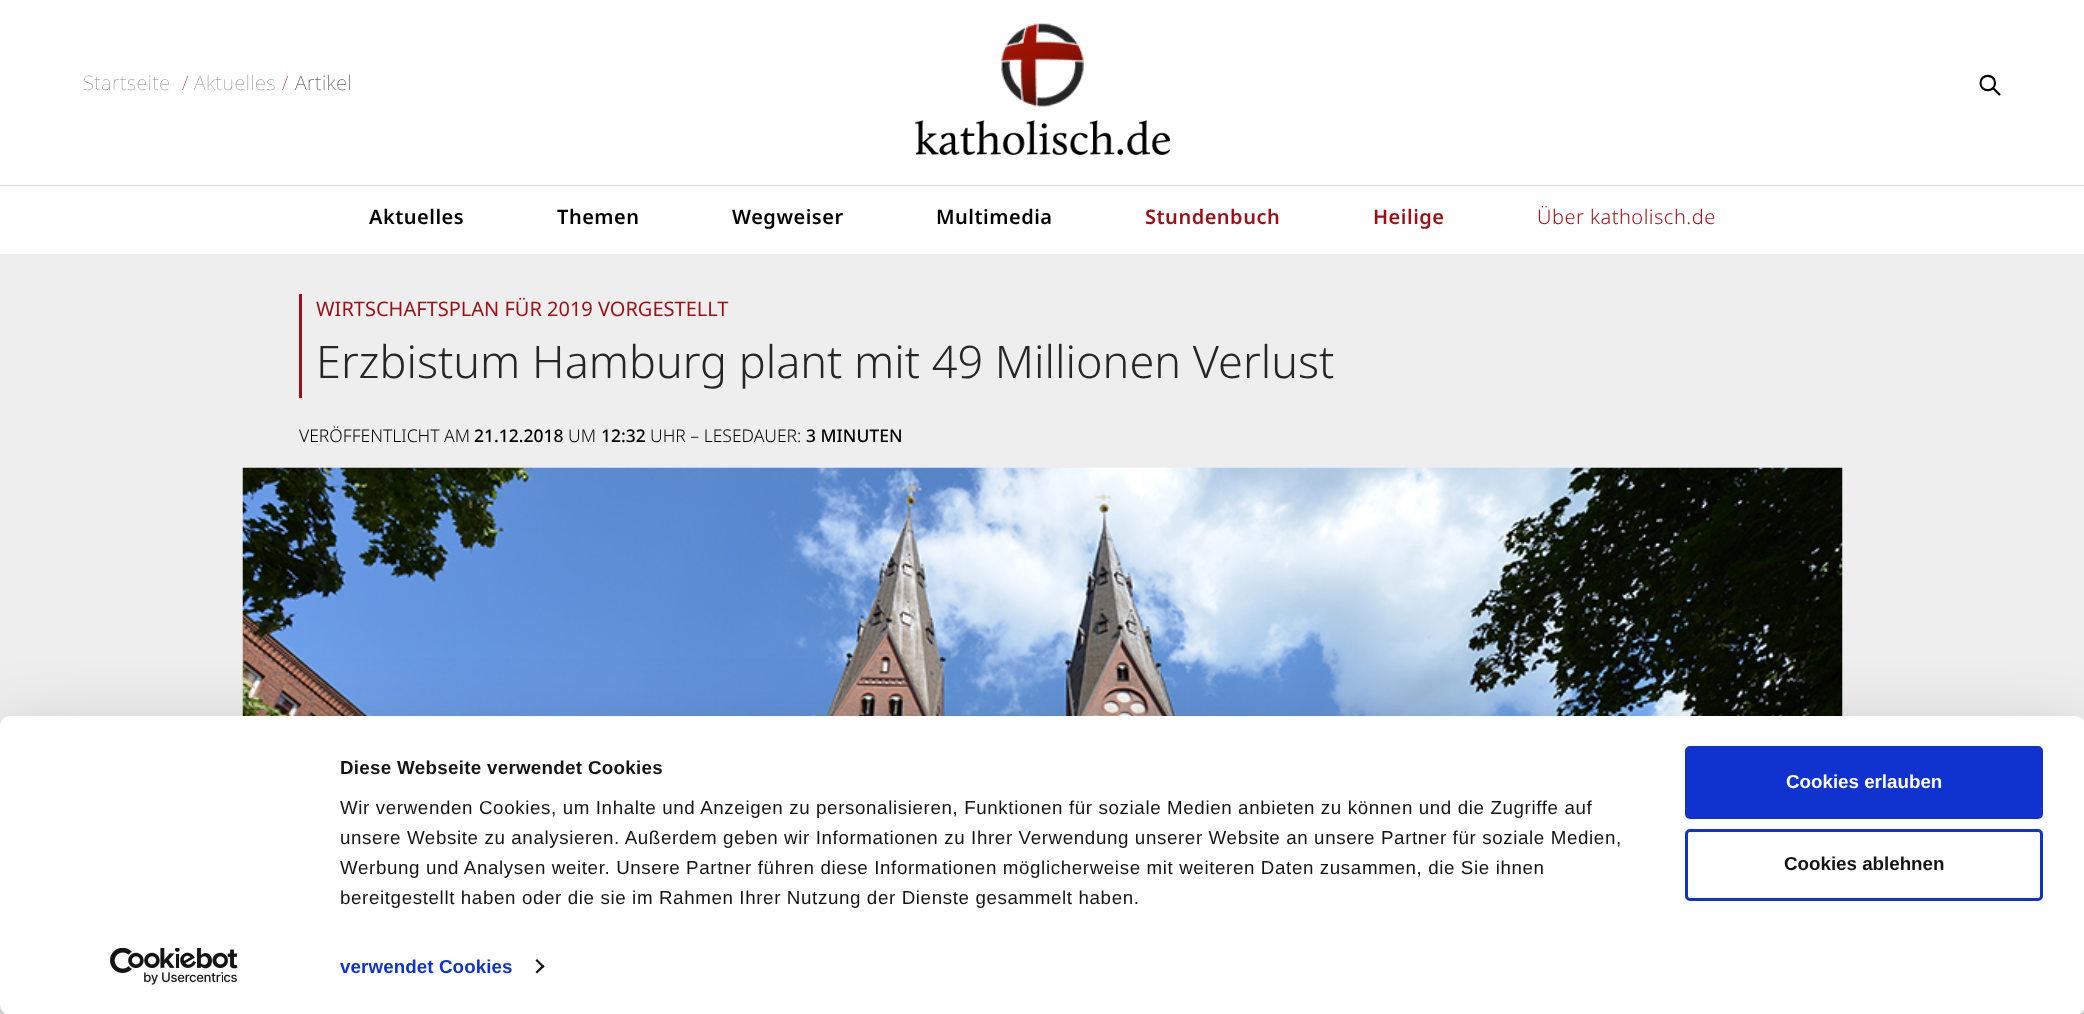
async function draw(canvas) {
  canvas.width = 2084;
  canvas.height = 1014;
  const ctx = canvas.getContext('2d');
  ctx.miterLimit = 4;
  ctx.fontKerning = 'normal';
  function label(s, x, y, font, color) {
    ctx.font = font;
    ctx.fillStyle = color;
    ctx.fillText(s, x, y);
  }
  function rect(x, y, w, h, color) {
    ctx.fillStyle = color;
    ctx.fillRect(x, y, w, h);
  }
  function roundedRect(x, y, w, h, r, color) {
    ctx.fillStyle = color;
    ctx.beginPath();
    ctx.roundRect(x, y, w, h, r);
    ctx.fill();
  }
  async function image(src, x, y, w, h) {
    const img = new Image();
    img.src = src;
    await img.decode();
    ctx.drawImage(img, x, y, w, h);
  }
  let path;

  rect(0, 0, 2084, 1014, '#fff');
  ctx.letterSpacing = '0.5px';
  label('Startseite', 83, 90, '100 20px Noto Sans', '#888');
  label('/', 182, 90, '100 20px Noto Sans', '#9c0f16');
  label('Aktuelles', 194, 90, '100 20px Noto Sans', '#888');
  label('/', 282, 90, '100 20px Noto Sans', '#9c0f16');
  label('Artikel', 295, 90, '100 20px Noto Sans', '#262626');
  await image('assets/img1.png', 1001, 23, 83, 84);
  await image('assets/img2.png', 915, 120, 255, 35);
  path = new Path2D('M1999.5 94.5L1993 88M1995 83C1995 92.5 1980.5 92.5 1980.5 83C1980.5 73.5 1995 73.5 1995 83Z');
  ctx.strokeStyle = '#000';
  ctx.lineWidth = 2.1;
  ctx.lineCap = 'round';
  ctx.lineJoin = 'round';
  ctx.stroke(path);
  rect(0, 185, 2084, 1, '#ddd');
  label('Aktuelles', 369, 224, '600 20px Noto Sans', '#000');
  label('Themen', 557, 224, '600 20px Noto Sans', '#000');
  label('Wegweiser', 732, 224, '600 20px Noto Sans', '#000');
  label('Multimedia', 936, 224, '600 20px Noto Sans', '#000');
  label('Stundenbuch', 1145, 224, '600 20px Noto Sans', '#9c0f16');
  label('Heilige', 1373, 224, '600 20px Noto Sans', '#9c0f16');
  label('Über katholisch.de', 1537, 224, '300 20px Noto Sans', '#9c0f16');
  rect(0, 254, 2084, 760, '#eee');
  rect(299, 294, 3, 104, '#9c0f16');
  ctx.letterSpacing = '0px';
  label('WIRTSCHAFTSPLAN FÜR 2019 VORGESTELLT', 316, 316, '20px Noto Sans', '#9c0f16');
  label('Erzbistum Hamburg plant mit 49 Millionen Verlust', 316, 378, '300 45px Noto Sans', '#262626');
  label('VERÖFFENTLICHT AM', 299, 442, '300 17.5px Noto Sans', '#000');
  label('21.12.2018', 474, 442, '500 17.5px Noto Sans', '#000');
  label('UM', 568, 442, '300 17.5px Noto Sans', '#000');
  label('12:32', 601, 442, '500 17.5px Noto Sans', '#000');
  label('UHR – LESEDAUER:', 650, 442, '300 17.5px Noto Sans', '#000');
  label('3 MINUTEN', 806, 442, '500 17.5px Noto Sans', '#000');
  await image('assets/img3.png', 242, 467, 1601, 249);
  ctx.fillStyle = '#0000004d';
  ctx.filter = 'blur(44px)';
  ctx.beginPath();
  ctx.roundRect(0, 754, 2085, 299, 10);
  ctx.fill();
  ctx.filter = 'none';
  roundedRect(0, 716, 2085, 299, 10, '#fff');
  ctx.letterSpacing = '0.3px';
  label('Diese Webseite verwendet Cookies', 340, 774, 'bold 18.75px Liberation Sans', '#141414');
  ctx.letterSpacing = '0.62px';
  label('Wir verwenden Cookies, um Inhalte und Anzeigen zu personalisieren, Funktionen für soziale Medien anbieten zu können und die Zugriffe auf', 340, 814, '18.75px Liberation Sans', '#141414');
  label('unsere Website zu analysieren. Außerdem geben wir Informationen zu Ihrer Verwendung unserer Website an unsere Partner für soziale Medien,', 340, 844, '18.75px Liberation Sans', '#141414');
  label('Werbung und Analysen weiter. Unsere Partner führen diese Informationen möglicherweise mit weiteren Daten zusammen, die Sie ihnen', 340, 874, '18.75px Liberation Sans', '#141414');
  label('bereitgestellt haben oder die sie im Rahmen Ihrer Nutzung der Dienste gesammelt haben.', 340, 904, '18.75px Liberation Sans', '#141414');
  ctx.letterSpacing = '0.1px';
  label('verwendet Cookies', 340, 973, 'bold 18.75px Liberation Sans', '#1032cf');
  ctx.fillStyle = '#141414';
  path = new Path2D('M537 959L544.5 966.5L543 968L535.5 960.5Z');
  ctx.fill(path);
  path = new Path2D('M543 964.5L544.5 966.5L537 973.5L535.5 972Z');
  ctx.fill(path);
  ctx.fillStyle = '#1032cf';
  ctx.beginPath();
  ctx.roundRect(1686.5, 747.5, 355, 70, 3.5);
  ctx.fill();
  ctx.strokeStyle = '#1032cf';
  ctx.lineWidth = 3;
  ctx.lineJoin = 'miter';
  ctx.stroke();
  ctx.letterSpacing = '0px';
  label('Cookies erlauben', 1786, 788, 'bold 18.75px Liberation Sans', '#fff');
  ctx.beginPath();
  ctx.roundRect(1686.5, 830.5, 355, 69, 3.5);
  ctx.stroke();
  label('Cookies ablehnen', 1784, 870, 'bold 18.75px Liberation Sans', '#141414');
  await image('assets/img4.png', 110, 948, 128, 37);
}

draw(document.querySelector('canvas'));
